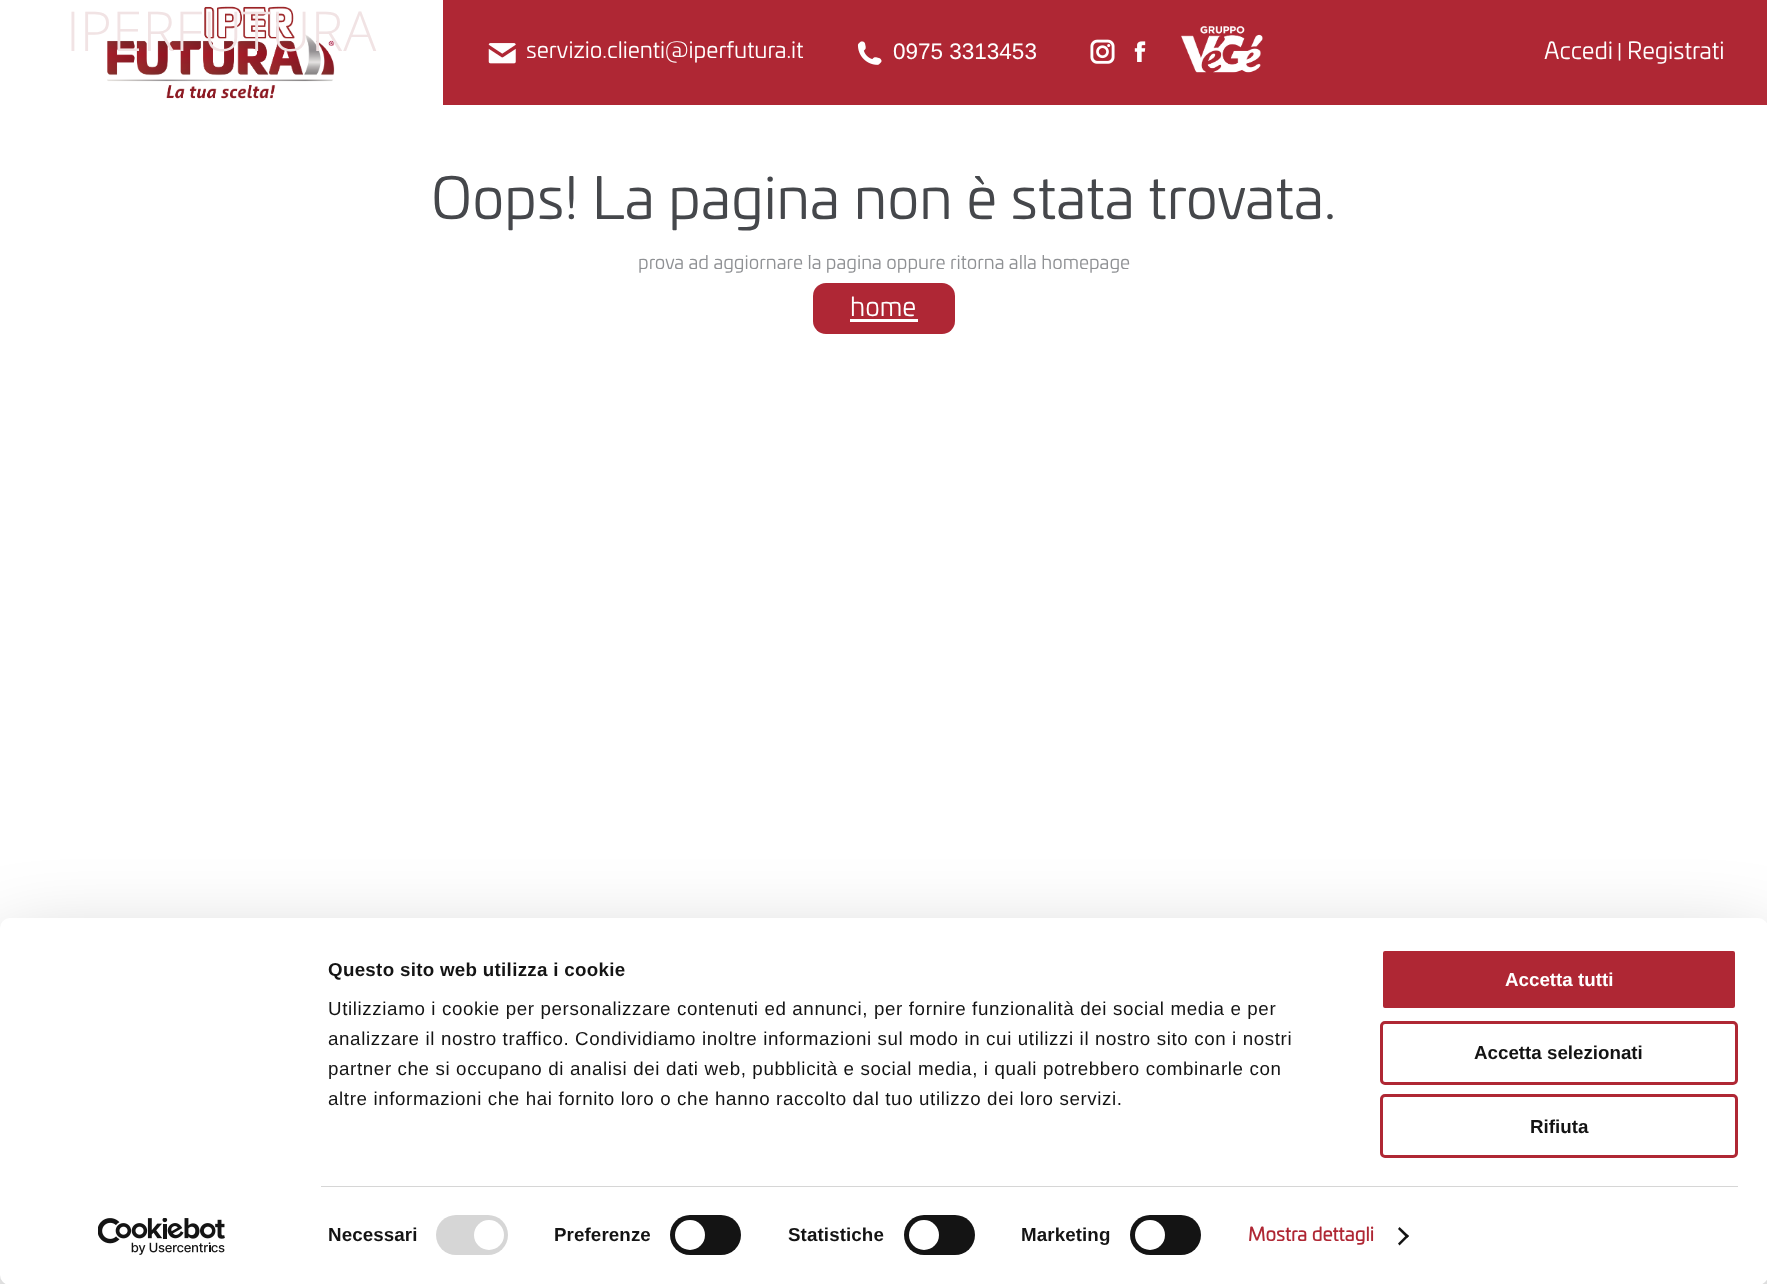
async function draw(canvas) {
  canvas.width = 1767;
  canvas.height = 1284;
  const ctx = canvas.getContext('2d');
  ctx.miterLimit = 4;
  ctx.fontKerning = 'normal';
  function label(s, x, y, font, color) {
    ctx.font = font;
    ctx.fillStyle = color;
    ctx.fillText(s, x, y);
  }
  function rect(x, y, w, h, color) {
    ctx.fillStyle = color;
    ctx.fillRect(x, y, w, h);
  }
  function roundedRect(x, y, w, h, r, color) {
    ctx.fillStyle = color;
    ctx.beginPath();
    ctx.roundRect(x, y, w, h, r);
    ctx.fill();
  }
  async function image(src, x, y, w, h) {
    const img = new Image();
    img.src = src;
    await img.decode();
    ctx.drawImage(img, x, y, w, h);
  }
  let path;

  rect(0, 0, 1767, 1284, '#fff');
  rect(443, 0, 1324, 105, '#af2734');
  await image('assets/img1.png', 107, 6, 228, 93);
  label('IPERFUTURA', 66, 51, '300 55px Open Sans', '#f1e3e4');
  await image('assets/img2.png', 488, 43, 28, 21);
  label('servizio.clienti@iperfutura.it', 526, 58, '22.5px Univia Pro', '#fff');
  await image('assets/img3.png', 857, 41, 25, 24);
  label('0975 3313453', 893, 59, '22.5px Liberation Sans', '#fff');
  await image('assets/img4.png', 1090, 39, 25, 25);
  await image('assets/img5.png', 1134, 41, 12, 21);
  await image('assets/img6.png', 1181, 26, 82, 47);
  label('Accedi', 1544, 59, '23.5px Univia Pro', '#fff');
  label('|', 1617, 59, '20px Univia Pro', '#fff');
  label('Registrati', 1627, 59, '23.5px Univia Pro', '#fff');
  label('Oops! La pagina non è stata trovata.', 431, 219, '57.5px Univia Pro', '#45474b');
  label('prova ad aggiornare la pagina oppure ritorna alla homepage', 638, 269, '18.75px Univia Pro', '#8f9194');
  roundedRect(813, 283, 142, 51, 13, '#af2735');
  label('home', 850, 316, '26px Univia Pro', '#fff');
  rect(850, 319, 68, 3, '#fff');
  ctx.fillStyle = '#0000004d';
  ctx.filter = 'blur(44px)';
  ctx.beginPath();
  ctx.roundRect(0, 955, 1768, 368, 10);
  ctx.fill();
  ctx.filter = 'none';
  roundedRect(0, 918, 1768, 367, 10, '#fff');
  ctx.letterSpacing = '0.3px';
  label('Questo sito web utilizza i cookie', 328, 976, 'bold 18.75px Liberation Sans', '#141414');
  ctx.letterSpacing = '0.62px';
  label('Utilizziamo i cookie per personalizzare contenuti ed annunci, per fornire funzionalità dei social media e per', 328, 1015, '18.75px Liberation Sans', '#141414');
  label('analizzare il nostro traffico. Condividiamo inoltre informazioni sul modo in cui utilizzi il nostro sito con i nostri', 328, 1045, '18.75px Liberation Sans', '#141414');
  label('partner che si occupano di analisi dei dati web, pubblicità e social media, i quali potrebbero combinarle con', 328, 1075, '18.75px Liberation Sans', '#141414');
  label('altre informazioni che hai fornito loro o che hanno raccolto dal tuo utilizzo dei loro servizi.', 328, 1105, '18.75px Liberation Sans', '#141414');
  rect(321, 1186, 1417, 1, '#d6d6d6');
  ctx.letterSpacing = '0.1px';
  label('Necessari', 328, 1241, 'bold 18.75px Liberation Sans', '#141414');
  roundedRect(436, 1215, 72, 40, 20, '#d6d6d6');
  ctx.fillStyle = '#fff';
  ctx.beginPath();
  ctx.arc(489, 1235, 15, 0, 2 * Math.PI);
  ctx.fill();
  label('Preferenze', 554, 1241, 'bold 18.75px Liberation Sans', '#141414');
  roundedRect(670, 1215, 71, 40, 20, '#141414');
  ctx.fillStyle = '#fff';
  ctx.beginPath();
  ctx.arc(690, 1235, 15, 0, 2 * Math.PI);
  ctx.fill();
  label('Statistiche', 788, 1241, 'bold 18.75px Liberation Sans', '#141414');
  roundedRect(904, 1215, 71, 40, 20, '#141414');
  ctx.fillStyle = '#fff';
  ctx.beginPath();
  ctx.arc(924, 1235, 15, 0, 2 * Math.PI);
  ctx.fill();
  label('Marketing', 1021, 1241, 'bold 18.75px Liberation Sans', '#141414');
  roundedRect(1130, 1215, 71, 40, 20, '#141414');
  ctx.fillStyle = '#fff';
  ctx.beginPath();
  ctx.arc(1150, 1235, 15, 0, 2 * Math.PI);
  ctx.fill();
  label('Mostra dettagli', 1248, 1241, 'bold 18.75px Univia Pro', '#af2734');
  ctx.fillStyle = '#141414';
  path = new Path2D('M1399.5 1227L1409 1236L1407 1238L1398 1229Z');
  ctx.fill(path);
  path = new Path2D('M1407 1234.5L1409 1236L1399.5 1245.5L1398 1243.5Z');
  ctx.fill(path);
  ctx.fillStyle = '#af2734';
  ctx.beginPath();
  ctx.roundRect(1381.5, 949.5, 355, 60, 3.5);
  ctx.fill();
  ctx.strokeStyle = '#fff';
  ctx.lineWidth = 3;
  ctx.stroke();
  ctx.letterSpacing = '0px';
  label('Accetta tutti', 1505, 986, 'bold 18.75px Liberation Sans', '#fff');
  ctx.beginPath();
  ctx.roundRect(1381.5, 1022.5, 355, 61, 3.5);
  ctx.strokeStyle = '#af2734';
  ctx.stroke();
  label('Accetta selezionati', 1474, 1059, 'bold 18.75px Liberation Sans', '#141414');
  ctx.beginPath();
  ctx.roundRect(1381.5, 1095.5, 355, 61, 3.5);
  ctx.stroke();
  label('Rifiuta', 1530, 1133, 'bold 18.75px Liberation Sans', '#141414');
  await image('assets/img7.png', 98, 1218, 127, 37);
}

draw(document.querySelector('canvas'));
